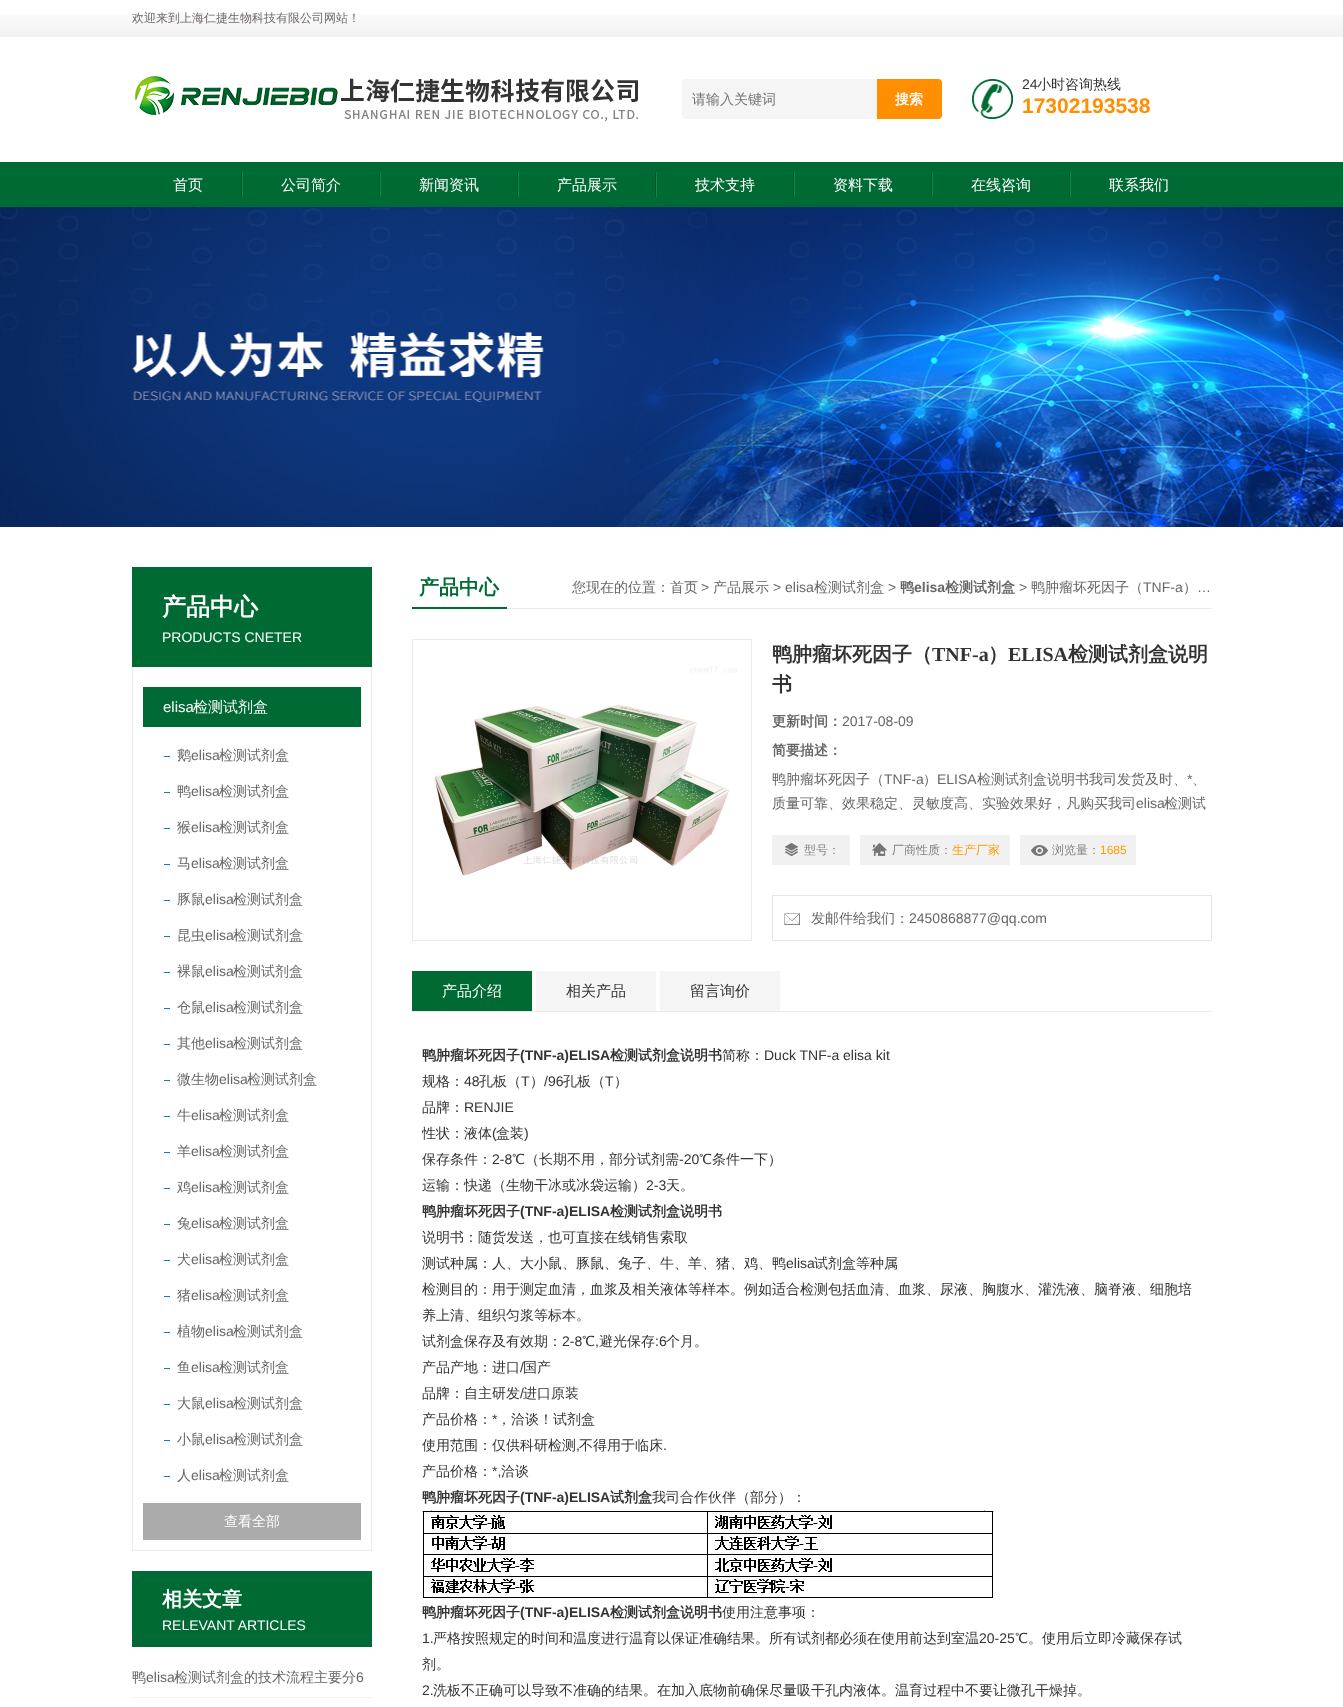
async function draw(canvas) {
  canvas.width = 1343;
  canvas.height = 1707;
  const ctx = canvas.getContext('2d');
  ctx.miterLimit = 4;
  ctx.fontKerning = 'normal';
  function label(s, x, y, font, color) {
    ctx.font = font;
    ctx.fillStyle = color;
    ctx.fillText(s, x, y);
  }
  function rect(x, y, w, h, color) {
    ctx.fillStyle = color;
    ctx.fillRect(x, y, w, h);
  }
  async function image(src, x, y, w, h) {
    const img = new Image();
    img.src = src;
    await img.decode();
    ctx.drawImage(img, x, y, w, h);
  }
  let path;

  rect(0, 0, 1343, 1707, '#fff');
  await image('assets/img1.png', 0, 14, 1343, 193);
  label('欢迎来到上海仁捷生物科技有限公司网站！', 132, 22, '500 12px WenQuanYi Zen Hei', '#706868');
  await image('assets/img2.png', 135, 76, 503, 46);
  ctx.fillStyle = '#f5f5f5';
  ctx.beginPath();
  ctx.roundRect(682, 79, 195, 40, [4, 0, 0, 4]);
  ctx.fill();
  label('请输入关键词', 692, 104, '500 14px WenQuanYi Zen Hei', '#757575');
  ctx.fillStyle = '#ff8e00';
  ctx.beginPath();
  ctx.roundRect(877, 79, 65, 40, [0, 4, 4, 0]);
  ctx.fill();
  label('搜索', 895, 104, 'bold 14px WenQuanYi Zen Hei', '#fff');
  await image('assets/img3.png', 972, 79, 41, 40);
  label('24', 1022, 89, '14px Liberation Sans', '#333');
  label('小时咨询热线', 1037, 89, '500 14px WenQuanYi Zen Hei', '#333');
  label('17302193538', 1022, 113, 'bold 21px Liberation Sans', '#ff8e00');
  await image('assets/img4.png', 241, 172, 2, 25);
  label('首页', 173, 190, '500 15px WenQuanYi Zen Hei', '#fff');
  await image('assets/img4.png', 379, 172, 2, 25);
  label('公司简介', 281, 190, '500 15px WenQuanYi Zen Hei', '#fff');
  await image('assets/img4.png', 517, 172, 2, 25);
  label('新闻资讯', 419, 190, '500 15px WenQuanYi Zen Hei', '#fff');
  await image('assets/img4.png', 655, 172, 2, 25);
  label('产品展示', 557, 190, '500 15px WenQuanYi Zen Hei', '#fff');
  await image('assets/img4.png', 793, 172, 2, 25);
  label('技术支持', 695, 190, '500 15px WenQuanYi Zen Hei', '#fff');
  await image('assets/img4.png', 931, 172, 2, 25);
  label('资料下载', 833, 190, '500 15px WenQuanYi Zen Hei', '#fff');
  await image('assets/img4.png', 1069, 172, 2, 25);
  label('在线咨询', 971, 190, '500 15px WenQuanYi Zen Hei', '#fff');
  label('联系我们', 1109, 190, '500 15px WenQuanYi Zen Hei', '#fff');
  await image('assets/img5.png', 0, 207, 1343, 320);
  rect(132, 567, 240, 100, '#006a34');
  label('产品中心', 162, 615, 'bold 24px WenQuanYi Zen Hei', '#fff');
  label('PRODUCTS CNETER', 162, 642, '14px Liberation Sans', '#fff');
  rect(371, 667, 1, 884, '#eaeaea');
  rect(132, 1550, 240, 1, '#eaeaea');
  rect(132, 667, 1, 884, '#eaeaea');
  rect(143, 687, 218, 40, '#006a34');
  label('elisa', 163, 712, '15px Liberation Sans', '#fff');
  label('检测试剂盒', 193, 712, '500 15px WenQuanYi Zen Hei', '#fff');
  rect(164, 756, 6, 1, '#0f7adb');
  label('鹅', 177, 760, '500 14px WenQuanYi Zen Hei', '#666');
  label('elisa', 191, 760, '14px Liberation Sans', '#666');
  label('检测试剂盒', 219, 760, '500 14px WenQuanYi Zen Hei', '#666');
  rect(164, 792, 6, 1, '#0f7adb');
  label('鸭', 177, 796, '500 14px WenQuanYi Zen Hei', '#666');
  label('elisa', 191, 796, '14px Liberation Sans', '#666');
  label('检测试剂盒', 219, 796, '500 14px WenQuanYi Zen Hei', '#666');
  rect(164, 828, 6, 1, '#0f7adb');
  label('猴', 177, 832, '500 14px WenQuanYi Zen Hei', '#666');
  label('elisa', 191, 832, '14px Liberation Sans', '#666');
  label('检测试剂盒', 219, 832, '500 14px WenQuanYi Zen Hei', '#666');
  rect(164, 864, 6, 1, '#0f7adb');
  label('马', 177, 868, '500 14px WenQuanYi Zen Hei', '#666');
  label('elisa', 191, 868, '14px Liberation Sans', '#666');
  label('检测试剂盒', 219, 868, '500 14px WenQuanYi Zen Hei', '#666');
  rect(164, 900, 6, 1, '#0f7adb');
  label('豚鼠', 177, 904, '500 14px WenQuanYi Zen Hei', '#666');
  label('elisa', 205, 904, '14px Liberation Sans', '#666');
  label('检测试剂盒', 233, 904, '500 14px WenQuanYi Zen Hei', '#666');
  rect(164, 936, 6, 1, '#0f7adb');
  label('昆虫', 177, 940, '500 14px WenQuanYi Zen Hei', '#666');
  label('elisa', 205, 940, '14px Liberation Sans', '#666');
  label('检测试剂盒', 233, 940, '500 14px WenQuanYi Zen Hei', '#666');
  rect(164, 972, 6, 1, '#0f7adb');
  label('裸鼠', 177, 976, '500 14px WenQuanYi Zen Hei', '#666');
  label('elisa', 205, 976, '14px Liberation Sans', '#666');
  label('检测试剂盒', 233, 976, '500 14px WenQuanYi Zen Hei', '#666');
  rect(164, 1008, 6, 1, '#0f7adb');
  label('仓鼠', 177, 1012, '500 14px WenQuanYi Zen Hei', '#666');
  label('elisa', 205, 1012, '14px Liberation Sans', '#666');
  label('检测试剂盒', 233, 1012, '500 14px WenQuanYi Zen Hei', '#666');
  rect(164, 1044, 6, 1, '#0f7adb');
  label('其他', 177, 1048, '500 14px WenQuanYi Zen Hei', '#666');
  label('elisa', 205, 1048, '14px Liberation Sans', '#666');
  label('检测试剂盒', 233, 1048, '500 14px WenQuanYi Zen Hei', '#666');
  rect(164, 1080, 6, 1, '#0f7adb');
  label('微生物', 177, 1084, '500 14px WenQuanYi Zen Hei', '#666');
  label('elisa', 219, 1084, '14px Liberation Sans', '#666');
  label('检测试剂盒', 247, 1084, '500 14px WenQuanYi Zen Hei', '#666');
  rect(164, 1116, 6, 1, '#0f7adb');
  label('牛', 177, 1120, '500 14px WenQuanYi Zen Hei', '#666');
  label('elisa', 191, 1120, '14px Liberation Sans', '#666');
  label('检测试剂盒', 219, 1120, '500 14px WenQuanYi Zen Hei', '#666');
  rect(164, 1152, 6, 1, '#0f7adb');
  label('羊', 177, 1156, '500 14px WenQuanYi Zen Hei', '#666');
  label('elisa', 191, 1156, '14px Liberation Sans', '#666');
  label('检测试剂盒', 219, 1156, '500 14px WenQuanYi Zen Hei', '#666');
  rect(164, 1188, 6, 1, '#0f7adb');
  label('鸡', 177, 1192, '500 14px WenQuanYi Zen Hei', '#666');
  label('elisa', 191, 1192, '14px Liberation Sans', '#666');
  label('检测试剂盒', 219, 1192, '500 14px WenQuanYi Zen Hei', '#666');
  rect(164, 1224, 6, 1, '#0f7adb');
  label('兔', 177, 1228, '500 14px WenQuanYi Zen Hei', '#666');
  label('elisa', 191, 1228, '14px Liberation Sans', '#666');
  label('检测试剂盒', 219, 1228, '500 14px WenQuanYi Zen Hei', '#666');
  rect(164, 1260, 6, 1, '#0f7adb');
  label('犬', 177, 1264, '500 14px WenQuanYi Zen Hei', '#666');
  label('elisa', 191, 1264, '14px Liberation Sans', '#666');
  label('检测试剂盒', 219, 1264, '500 14px WenQuanYi Zen Hei', '#666');
  rect(164, 1296, 6, 1, '#0f7adb');
  label('猪', 177, 1300, '500 14px WenQuanYi Zen Hei', '#666');
  label('elisa', 191, 1300, '14px Liberation Sans', '#666');
  label('检测试剂盒', 219, 1300, '500 14px WenQuanYi Zen Hei', '#666');
  rect(164, 1332, 6, 1, '#0f7adb');
  label('植物', 177, 1336, '500 14px WenQuanYi Zen Hei', '#666');
  label('elisa', 205, 1336, '14px Liberation Sans', '#666');
  label('检测试剂盒', 233, 1336, '500 14px WenQuanYi Zen Hei', '#666');
  rect(164, 1368, 6, 1, '#0f7adb');
  label('鱼', 177, 1372, '500 14px WenQuanYi Zen Hei', '#666');
  label('elisa', 191, 1372, '14px Liberation Sans', '#666');
  label('检测试剂盒', 219, 1372, '500 14px WenQuanYi Zen Hei', '#666');
  rect(164, 1404, 6, 1, '#0f7adb');
  label('大鼠', 177, 1408, '500 14px WenQuanYi Zen Hei', '#666');
  label('elisa', 205, 1408, '14px Liberation Sans', '#666');
  label('检测试剂盒', 233, 1408, '500 14px WenQuanYi Zen Hei', '#666');
  rect(164, 1440, 6, 1, '#0f7adb');
  label('小鼠', 177, 1444, '500 14px WenQuanYi Zen Hei', '#666');
  label('elisa', 205, 1444, '14px Liberation Sans', '#666');
  label('检测试剂盒', 233, 1444, '500 14px WenQuanYi Zen Hei', '#666');
  rect(164, 1476, 6, 1, '#0f7adb');
  label('人', 177, 1480, '500 14px WenQuanYi Zen Hei', '#666');
  label('elisa', 191, 1480, '14px Liberation Sans', '#666');
  label('检测试剂盒', 219, 1480, '500 14px WenQuanYi Zen Hei', '#666');
  rect(143, 1503, 218, 37, '#aaa');
  label('查看全部', 224, 1526, '500 14px WenQuanYi Zen Hei', '#fff');
  rect(132, 1571, 240, 76, '#006a34');
  label('相关文章', 162, 1606, 'bold 20px WenQuanYi Zen Hei', '#fff');
  label('RELEVANT ARTICLES', 162, 1630, '14px Liberation Sans', '#fff');
  path = new Path2D('M132 1697.5H372');
  ctx.strokeStyle = '#eaeaea';
  ctx.setLineDash([1, 1]);
  ctx.stroke(path);
  label('鸭', 132, 1682, '500 14px WenQuanYi Zen Hei', '#666');
  label('elisa', 146, 1682, '14px Liberation Sans', '#666');
  label('检测试剂盒的技术流程主要分', 174, 1682, '500 14px WenQuanYi Zen Hei', '#666');
  label('6', 356, 1682, '14px Liberation Sans', '#666');
  rect(507, 608, 705, 1, '#eaeaea');
  rect(412, 607, 95, 2, '#006a34');
  label('产品中心', 419, 594, 'bold 20px WenQuanYi Zen Hei', '#006a34');
  label('您现在的位置：首页', 572, 592, '500 14px WenQuanYi Zen Hei', '#666');
  label('>', 701, 592, '14px Liberation Sans', '#666');
  label('产品展示', 713, 592, '500 14px WenQuanYi Zen Hei', '#666');
  label('> elisa', 773, 592, '14px Liberation Sans', '#666');
  label('检测试剂盒', 814, 592, '500 14px WenQuanYi Zen Hei', '#666');
  label('>', 888, 592, '14px Liberation Sans', '#666');
  label('鸭', 900, 592, 'bold 14px WenQuanYi Zen Hei', '#666');
  label('elisa', 914, 592, 'bold 14px Liberation Sans', '#666');
  label('检测试剂盒', 945, 592, 'bold 14px WenQuanYi Zen Hei', '#666');
  label('>', 1019, 592, '14px Liberation Sans', '#666');
  label('鸭肿瘤坏死因子（', 1031, 592, '500 14px WenQuanYi Zen Hei', '#666');
  label('TNF-a', 1143, 592, '14px Liberation Sans', '#666');
  label('）', 1183, 592, '500 14px WenQuanYi Zen Hei', '#666');
  label('…', 1197, 592, '14px Liberation Sans', '#666');
  ctx.setLineDash([]);
  ctx.strokeRect(412.5, 639.5, 339, 301);
  await image('assets/img6.png', 434, 666, 303, 210);
  label('鸭肿瘤坏死因子（', 772, 661, 'bold 20px WenQuanYi Zen Hei', '#333');
  label('TNF-a', 932, 661, 'bold 20px Liberation Serif', '#333');
  label('）', 988, 661, 'bold 20px WenQuanYi Zen Hei', '#333');
  label('ELISA', 1008, 661, 'bold 20px Liberation Serif', '#333');
  label('检测试剂盒说明', 1068, 661, 'bold 20px WenQuanYi Zen Hei', '#333');
  label('书', 772, 691, 'bold 20px WenQuanYi Zen Hei', '#333');
  label('更新时间：', 772, 726, 'bold 14px WenQuanYi Zen Hei', '#666');
  label('2017-08-09', 842, 726, '14px Liberation Sans', '#666');
  label('简要描述：', 772, 755, 'bold 14px WenQuanYi Zen Hei', '#666');
  label('鸭肿瘤坏死因子（', 772, 784, '500 14px WenQuanYi Zen Hei', '#666');
  label('TNF-a', 884, 784, '14px Liberation Sans', '#666');
  label('）', 923, 784, '500 14px WenQuanYi Zen Hei', '#666');
  label('ELISA', 937, 784, '14px Liberation Sans', '#666');
  label('检测试剂盒说明书我司发货及时、', 977, 784, '500 14px WenQuanYi Zen Hei', '#666');
  label('*', 1187, 784, '14px Liberation Sans', '#666');
  label('、', 1192, 784, '500 14px WenQuanYi Zen Hei', '#666');
  label('质量可靠、效果稳定、灵敏度高、实验效果好，凡购买我司', 772, 808, '500 14px WenQuanYi Zen Hei', '#666');
  label('elisa', 1136, 808, '14px Liberation Sans', '#666');
  label('检测试', 1164, 808, '500 14px WenQuanYi Zen Hei', '#666');
  rect(772, 835, 78, 30, '#f1f1f1');
  await image('assets/img7.png', 785, 843, 13, 13);
  label('型号：', 804, 854, '500 12px WenQuanYi Zen Hei', '#828282');
  rect(860, 835, 150, 30, '#f1f1f1');
  await image('assets/img8.png', 872, 843, 15, 13);
  label('厂商性质：', 892, 854, '500 12px WenQuanYi Zen Hei', '#828282');
  label('生产厂家', 952, 854, '500 12px WenQuanYi Zen Hei', '#ff9c00');
  rect(1020, 835, 116, 30, '#f1f1f1');
  await image('assets/img9.png', 1031, 845, 17, 11);
  label('浏览量：', 1052, 854, '500 12px WenQuanYi Zen Hei', '#828282');
  label('1685', 1100, 854, '12px Liberation Sans', '#ff9c00');
  ctx.strokeStyle = '#e6e6e6';
  ctx.strokeRect(772.5, 895.5, 439, 45);
  await image('assets/img10.png', 784, 913, 16, 12);
  label('发邮件给我们：', 811, 923, '500 14px WenQuanYi Zen Hei', '#666');
  label('2450868877@qq.com', 909, 923, '14px Liberation Sans', '#666');
  rect(412, 1011, 800, 1, '#eaeaea');
  rect(412, 971, 120, 40, '#006a34');
  label('产品介绍', 442, 996, '500 15px WenQuanYi Zen Hei', '#fff');
  rect(536, 971, 120, 40, '#f5f5f5');
  label('相关产品', 566, 996, '500 15px WenQuanYi Zen Hei', '#333');
  rect(660, 971, 120, 40, '#f5f5f5');
  label('留言询价', 690, 996, '500 15px WenQuanYi Zen Hei', '#333');
  label('鸭肿瘤坏死因子', 422, 1060, 'bold 14px WenQuanYi Zen Hei', '#333');
  label('(TNF-a)ELISA', 520, 1060, 'bold 14px Liberation Sans', '#333');
  label('检测试剂盒说明书', 610, 1060, 'bold 14px WenQuanYi Zen Hei', '#333');
  label('简称：', 722, 1060, '500 14px WenQuanYi Zen Hei', '#333');
  label('Duck TNF-a elisa kit', 764, 1060, '14px Liberation Sans', '#333');
  label('规格：', 422, 1086, '500 14px WenQuanYi Zen Hei', '#333');
  label('48', 464, 1086, '14px Liberation Sans', '#333');
  label('孔板（', 479, 1086, '500 14px WenQuanYi Zen Hei', '#333');
  label('T', 521, 1086, '14px Liberation Sans', '#333');
  label('）', 530, 1086, '500 14px WenQuanYi Zen Hei', '#333');
  label('/96', 544, 1086, '14px Liberation Sans', '#333');
  label('孔板（', 563, 1086, '500 14px WenQuanYi Zen Hei', '#333');
  label('T', 605, 1086, '14px Liberation Sans', '#333');
  label('）', 614, 1086, '500 14px WenQuanYi Zen Hei', '#333');
  label('品牌：', 422, 1112, '500 14px WenQuanYi Zen Hei', '#333');
  label('RENJIE', 464, 1112, '14px Liberation Sans', '#333');
  ctx.save();
  ctx.beginPath();
  ctx.rect(422, 1022, 780, 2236);
  ctx.clip();
  label('性状：液体', 422, 1138, '500 14px WenQuanYi Zen Hei', '#333');
  ctx.restore();
  label('(', 492, 1138, '14px Liberation Sans', '#333');
  label('盒装', 496, 1138, '500 14px WenQuanYi Zen Hei', '#333');
  label(')', 524, 1138, '14px Liberation Sans', '#333');
  label('保存条件：', 422, 1164, '500 14px WenQuanYi Zen Hei', '#333');
  label('2-8', 492, 1164, '14px Liberation Sans', '#333');
  label('℃（长期不用，部分试剂需', 512, 1164, '500 14px WenQuanYi Zen Hei', '#333');
  label('-20', 679, 1164, '14px Liberation Sans', '#333');
  label('℃条件一下）', 699, 1164, '500 14px WenQuanYi Zen Hei', '#333');
  label('运输：快递（生物干冰或冰袋运输）', 422, 1190, '500 14px WenQuanYi Zen Hei', '#333');
  label('2-3', 646, 1190, '14px Liberation Sans', '#333');
  label('天。', 666, 1190, '500 14px WenQuanYi Zen Hei', '#333');
  label('鸭肿瘤坏死因子', 422, 1216, 'bold 14px WenQuanYi Zen Hei', '#333');
  label('(TNF-a)ELISA', 520, 1216, 'bold 14px Liberation Sans', '#333');
  label('检测试剂盒说明书', 610, 1216, 'bold 14px WenQuanYi Zen Hei', '#333');
  label('说明书：随货发送，也可直接在线销售索取', 422, 1242, '500 14px WenQuanYi Zen Hei', '#333');
  label('测试种属：人、大小鼠、豚鼠、兔子、牛、羊、猪、鸡、鸭', 422, 1268, '500 14px WenQuanYi Zen Hei', '#333');
  label('elisa', 786, 1268, '14px Liberation Sans', '#333');
  label('试剂盒等种属', 814, 1268, '500 14px WenQuanYi Zen Hei', '#333');
  label('检测目的：用于测定血清，血浆及相关液体等样本。例如适合检测包括血清、血浆、尿液、胸腹水、灌洗液、脑脊液、细胞培', 422, 1294, '500 14px WenQuanYi Zen Hei', '#333');
  label('养上清、组织匀浆等标本。', 422, 1320, '500 14px WenQuanYi Zen Hei', '#333');
  label('试剂盒保存及有效期：', 422, 1346, '500 14px WenQuanYi Zen Hei', '#333');
  label('2-8', 562, 1346, '14px Liberation Sans', '#333');
  label('℃', 582, 1346, '500 14px WenQuanYi Zen Hei', '#333');
  label(',', 595, 1346, '14px Liberation Sans', '#333');
  label('避光保存', 599, 1346, '500 14px WenQuanYi Zen Hei', '#333');
  label(':6', 655, 1346, '14px Liberation Sans', '#333');
  label('个月。', 666, 1346, '500 14px WenQuanYi Zen Hei', '#333');
  label('产品产地：进口', 422, 1372, '500 14px WenQuanYi Zen Hei', '#333');
  label('/', 520, 1372, '14px Liberation Sans', '#333');
  label('国产', 523, 1372, '500 14px WenQuanYi Zen Hei', '#333');
  label('品牌：自主研发', 422, 1398, '500 14px WenQuanYi Zen Hei', '#333');
  label('/', 520, 1398, '14px Liberation Sans', '#333');
  label('进口原装', 523, 1398, '500 14px WenQuanYi Zen Hei', '#333');
  label('产品价格：', 422, 1424, '500 14px WenQuanYi Zen Hei', '#333');
  label('*', 492, 1424, '14px Liberation Sans', '#333');
  label('，洽谈！试剂盒', 497, 1424, '500 14px WenQuanYi Zen Hei', '#333');
  label('使用范围：仅供科研检测', 422, 1450, '500 14px WenQuanYi Zen Hei', '#333');
  label(',', 576, 1450, '14px Liberation Sans', '#333');
  label('不得用于临床', 579, 1450, '500 14px WenQuanYi Zen Hei', '#333');
  label('.', 663, 1450, '14px Liberation Sans', '#333');
  label('产品价格：', 422, 1476, '500 14px WenQuanYi Zen Hei', '#333');
  label('*,', 492, 1476, '14px Liberation Sans', '#333');
  label('洽谈', 501, 1476, '500 14px WenQuanYi Zen Hei', '#333');
  label('鸭肿瘤坏死因子', 422, 1502, 'bold 14px WenQuanYi Zen Hei', '#333');
  label('(TNF-a)ELISA', 520, 1502, 'bold 14px Liberation Sans', '#333');
  label('试剂盒', 610, 1502, 'bold 14px WenQuanYi Zen Hei', '#333');
  label('我司合作伙伴（部分）：', 652, 1502, '500 14px WenQuanYi Zen Hei', '#333');
  await image('assets/img11.png', 422, 1510, 572, 88);
  label('鸭肿瘤坏死因子', 422, 1617, 'bold 14px WenQuanYi Zen Hei', '#333');
  label('(TNF-a)ELISA', 520, 1617, 'bold 14px Liberation Sans', '#333');
  label('检测试剂盒说明书', 610, 1617, 'bold 14px WenQuanYi Zen Hei', '#333');
  label('使用注意事项：', 722, 1617, '500 14px WenQuanYi Zen Hei', '#333');
  label('1.', 422, 1643, '14px Liberation Sans', '#333');
  label('严格按照规定的时间和温度进行温育以保证准确结果。所有试剂都必须在使用前达到室温', 433, 1643, '500 14px WenQuanYi Zen Hei', '#333');
  label('20-25', 979, 1643, '14px Liberation Sans', '#333');
  label('℃。使用后立即冷藏保存试', 1015, 1643, '500 14px WenQuanYi Zen Hei', '#333');
  label('剂。', 422, 1669, '500 14px WenQuanYi Zen Hei', '#333');
  label('2.', 422, 1695, '14px Liberation Sans', '#333');
  label('洗板不正确可以导致不准确的结果。在加入底物前确保尽量吸干孔内液体。温育过程中不要让微孔干燥掉。', 433, 1695, '500 14px WenQuanYi Zen Hei', '#333');
}

draw(document.querySelector('canvas'));
